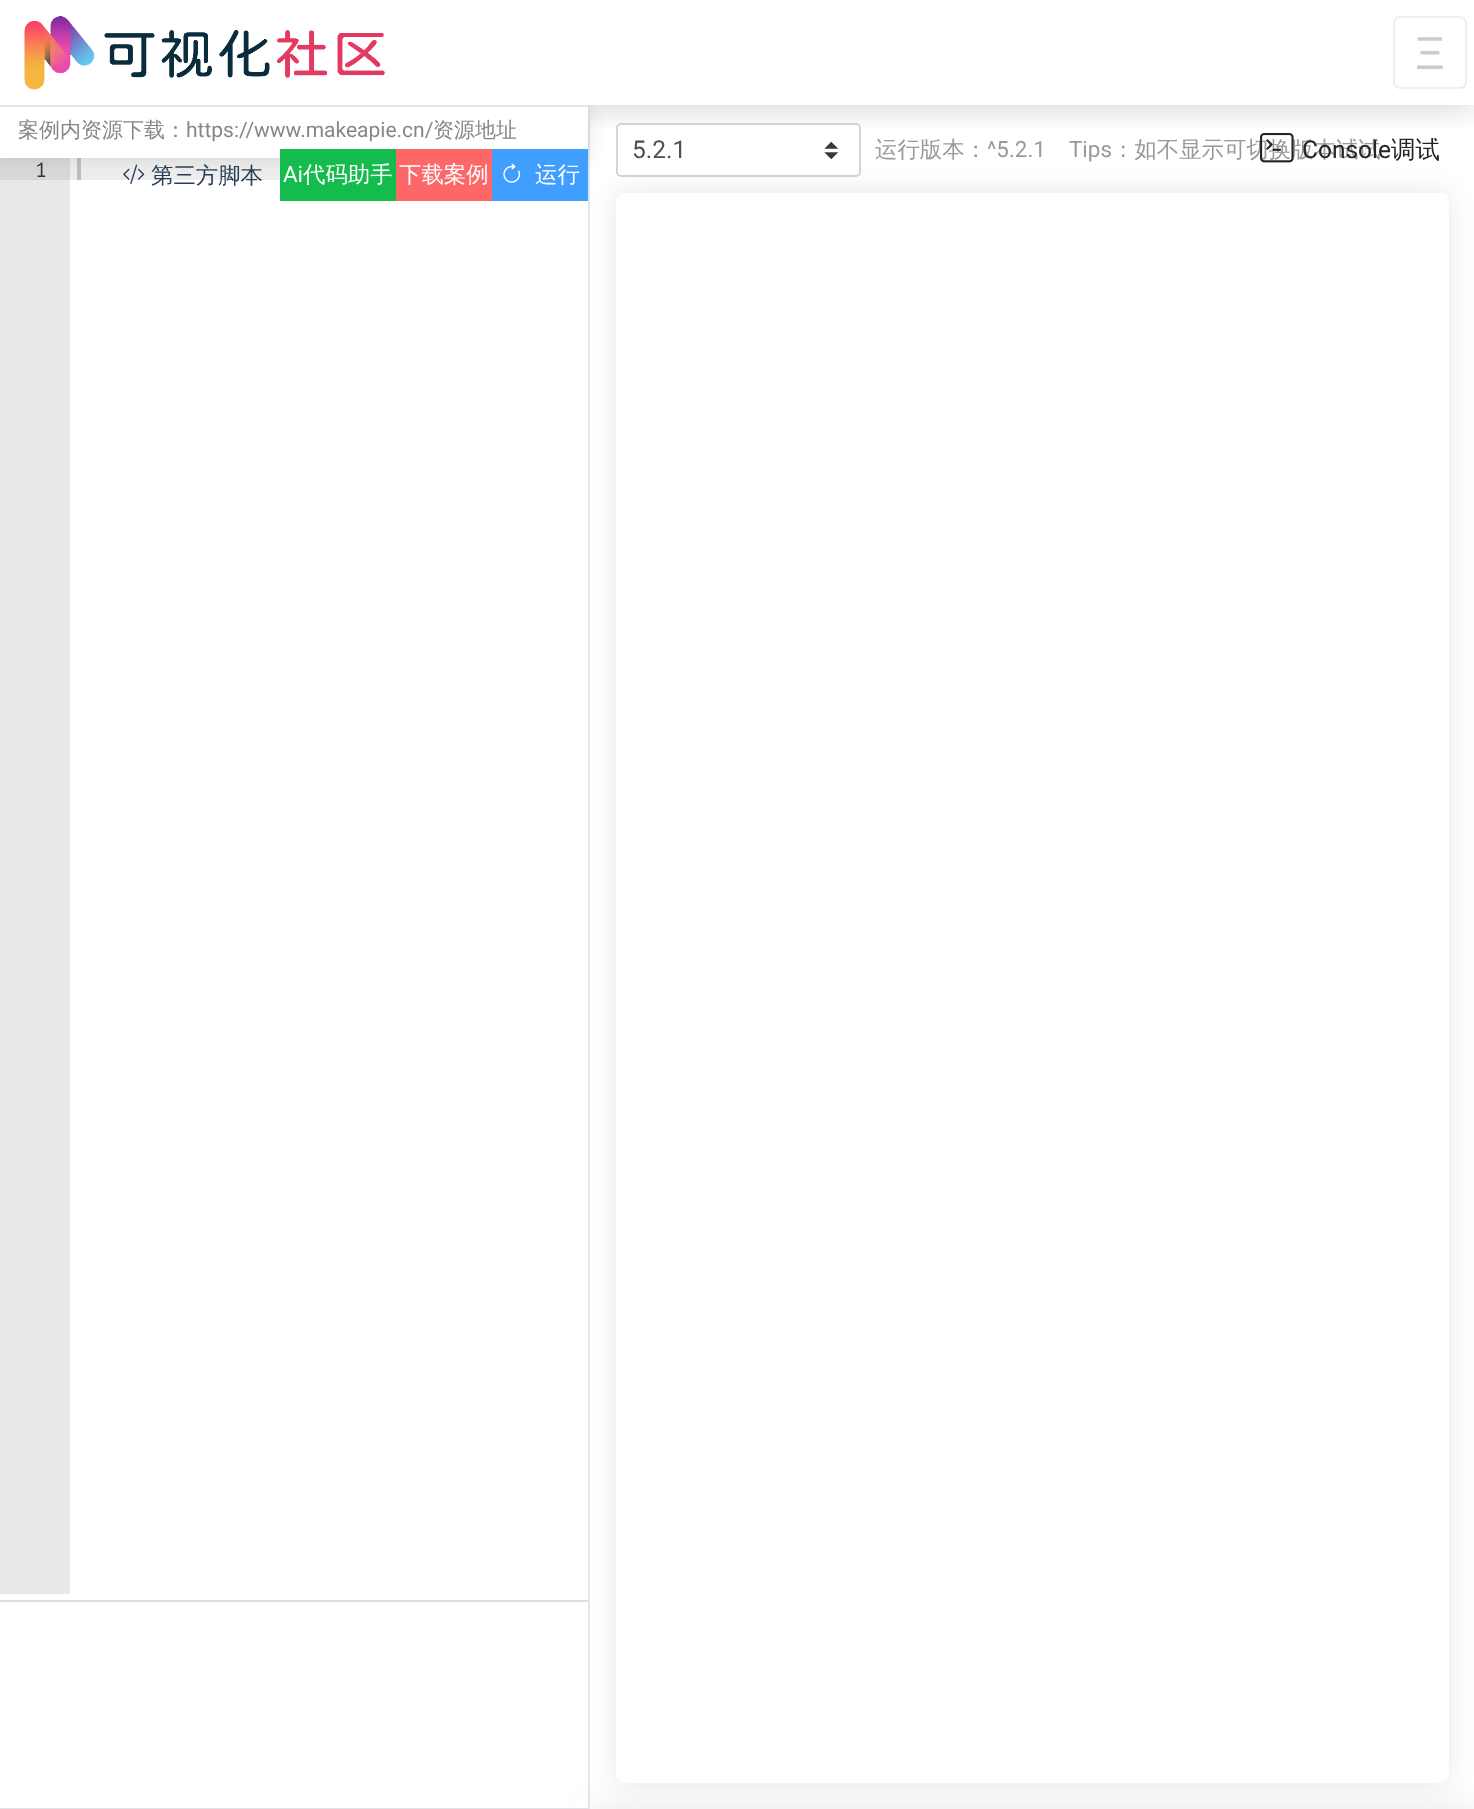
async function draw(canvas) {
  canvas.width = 1474;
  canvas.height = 1809;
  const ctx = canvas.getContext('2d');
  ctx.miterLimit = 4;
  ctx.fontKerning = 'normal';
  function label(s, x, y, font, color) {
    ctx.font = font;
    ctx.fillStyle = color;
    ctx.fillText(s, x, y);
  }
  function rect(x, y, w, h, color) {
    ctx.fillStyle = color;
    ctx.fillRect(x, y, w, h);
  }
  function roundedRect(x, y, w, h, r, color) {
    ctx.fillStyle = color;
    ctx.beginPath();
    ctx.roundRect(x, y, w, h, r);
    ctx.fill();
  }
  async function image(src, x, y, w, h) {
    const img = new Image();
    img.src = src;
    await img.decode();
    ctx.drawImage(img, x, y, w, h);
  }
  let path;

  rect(0, 0, 1474, 1809, '#fff');
  ctx.save();
  ctx.beginPath();
  ctx.rect(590, 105, 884, 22);
  ctx.clip();
  ctx.fillStyle = '#00000033';
  ctx.filter = 'blur(17.5px)';
  ctx.beginPath();
  ctx.rect(0, 0, 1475, 105);
  ctx.fill();
  ctx.filter = 'none';
  ctx.restore();
  await image('assets/img1.png', 24, 16, 361, 74);
  ctx.beginPath();
  ctx.roundRect(1394, 17, 72, 71, 6);
  ctx.strokeStyle = '#efefef';
  ctx.lineWidth = 2;
  ctx.stroke();
  label('Ξ', 1415, 69, '46px Liberation Sans', '#ccc');
  label('：如不显示可切换版本试试', 1112, 157, '500 22.4px WenQuanYi Zen Hei', '#999');
  await image('assets/img4.png', 1260, 133, 34, 30);
  roundedRect(616, 123, 245, 54, 5, '#fff');
  await image('assets/img5.png', 824, 142, 14, 17);
  ctx.beginPath();
  ctx.roundRect(617, 124, 243, 52, 4);
  ctx.strokeStyle = '#ced4da';
  ctx.stroke();
  ctx.save();
  path = new Path2D('M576 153H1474V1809H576ZM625 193H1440C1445 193 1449 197 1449 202V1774C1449 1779 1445 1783 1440 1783H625C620 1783 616 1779 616 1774V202C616 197 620 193 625 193Z');
  ctx.clip(path, 'evenodd');
  ctx.fillStyle = '#0000001a';
  ctx.filter = 'blur(13px)';
  ctx.beginPath();
  ctx.roundRect(616, 193, 833, 1590, 9);
  ctx.fill();
  ctx.filter = 'none';
  ctx.restore();
  ctx.fillStyle = '#0000001a';
  ctx.filter = 'blur(17.5px)';
  ctx.beginPath();
  ctx.rect(590, 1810, 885, 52);
  ctx.fill();
  ctx.filter = 'none';
  rect(588, 105, 2, 1704, '#e1e5f2');
  rect(0, 180, 70, 1414, '#e8e8e8');
  rect(0, 158, 70, 22, '#d8d8d8');
  rect(70, 158, 210, 22, '#ededed');
  rect(77, 158, 4, 22, '#bebebe');
  ctx.save();
  ctx.beginPath();
  ctx.rect(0, 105, 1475, 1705);
  ctx.clip();
  ctx.fillStyle = '#0000001a';
  ctx.filter = 'blur(9px)';
  ctx.beginPath();
  ctx.rect(0, 105, 588, 53);
  ctx.fill();
  ctx.filter = 'none';
  ctx.restore();
  rect(0, 107, 588, 51, '#fff');
  rect(0, 105, 588, 2, '#e1e5f2');
  label('案例内资源下载：', 18, 137, '500 21px WenQuanYi Zen Hei', '#878787');
  label('https://www.makeapie.cn/', 186, 137, '21px Roboto', '#878787');
  label('资源地址', 433, 137, '500 21px WenQuanYi Zen Hei', '#878787');
  await image('assets/img2.png', 123, 164, 22, 21);
  label('第三方脚本', 151, 183, '500 22.4px WenQuanYi Zen Hei', '#293c55');
  rect(280, 149, 116, 52, '#13bc4c');
  label('Ai', 283, 182, '22.4px Roboto', '#fff');
  label('代码助手', 303, 182, '500 22.4px WenQuanYi Zen Hei', '#fff');
  rect(396, 149, 96, 52, '#fd6767');
  label('下载案例', 399, 182, '500 22.4px WenQuanYi Zen Hei', '#fff');
  rect(492, 149, 96, 52, '#409eff');
  await image('assets/img3.png', 503, 163, 18, 20);
  label('运行', 535, 182, '500 22.4px WenQuanYi Zen Hei', '#fff');
  label('1', 35, 177, '21px Ubuntu Mono', '#333');
  rect(577, 1797, 11, 11, '#fff');
  rect(0, 1600, 588, 2, '#ddd');
  rect(0, 1808, 588, 1, '#dee2e6');
  label('Console', 1302, 158, '24.5px Roboto', '#212529');
  label('调试', 1391, 158, '500 24.5px WenQuanYi Zen Hei', '#212529');
  label('5.2.1', 632, 158, '24.5px Roboto', '#495057');
  label('运行版本：', 875, 157, '500 22.4px WenQuanYi Zen Hei', '#999');
  label('^5.2.1', 987, 157, '22.4px Roboto', '#999');
  label('Tips', 1069, 157, '22.4px Roboto', '#999');
}

draw(document.querySelector('canvas'));
